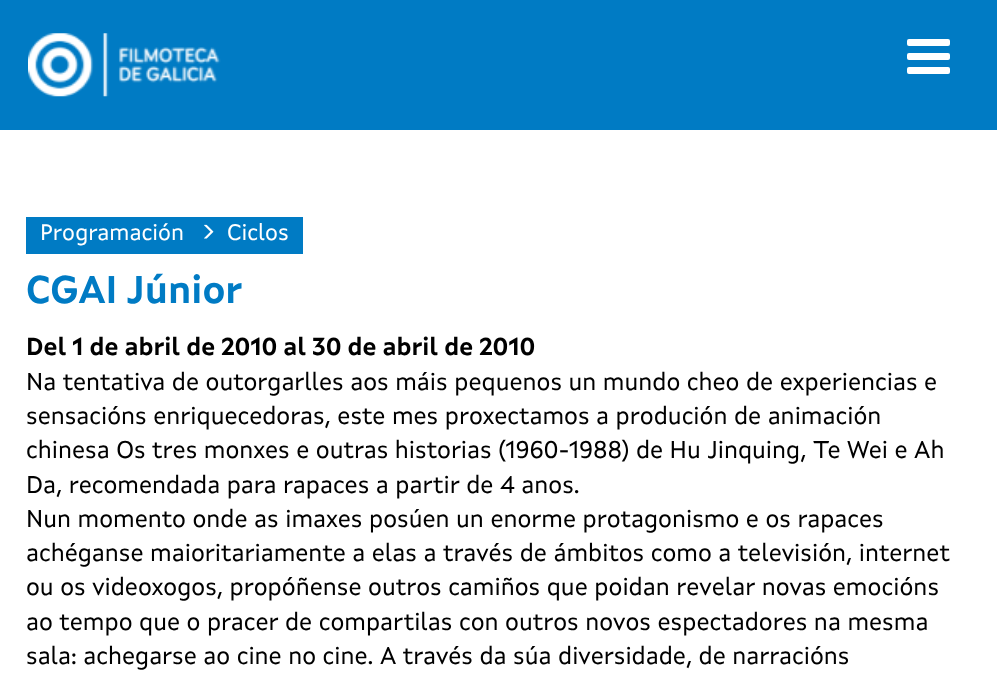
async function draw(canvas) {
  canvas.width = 997;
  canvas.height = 677;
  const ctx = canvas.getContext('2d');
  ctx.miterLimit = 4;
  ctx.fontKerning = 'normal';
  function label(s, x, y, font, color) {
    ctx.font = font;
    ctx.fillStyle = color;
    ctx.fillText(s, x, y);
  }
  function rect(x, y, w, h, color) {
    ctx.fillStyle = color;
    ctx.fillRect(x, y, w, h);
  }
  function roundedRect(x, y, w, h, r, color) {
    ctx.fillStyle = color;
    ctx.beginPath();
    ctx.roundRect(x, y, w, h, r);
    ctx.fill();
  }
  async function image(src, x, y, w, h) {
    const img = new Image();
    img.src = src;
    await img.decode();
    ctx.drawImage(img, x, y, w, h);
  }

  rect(0, 0, 997, 677, '#fff');
  rect(0, 0, 997, 130, '#007bc4');
  await image('assets/img1.png', 28, 33, 193, 64);
  roundedRect(907, 39, 43, 7, 2, '#fff');
  roundedRect(907, 53, 43, 7, 2, '#fff');
  roundedRect(907, 67, 43, 7, 2, '#fff');
  rect(26, 217, 277, 37, '#007bc4');
  label('Programación', 40, 240, '22.75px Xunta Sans', '#fff');
  await image('assets/img2.png', 204, 224, 10, 15);
  label('Ciclos', 227, 240, '22.75px Xunta Sans', '#fff');
  label('CGAI Júnior', 26, 303, 'bold 38.5px Xunta Sans', '#007bc4');
  label('Del 1 de abril de 2010 al 30 de abril de 2010', 26, 355, 'bold 24.5px Xunta Sans', '#000');
  label('Na tentativa de outorgarlles aos máis pequenos un mundo cheo de experiencias e', 26, 390, '24.5px Xunta Sans', '#000');
  label('sensacións enriquecedoras, este mes proxectamos a produción de animación', 26, 424, '24.5px Xunta Sans', '#000');
  label('chinesa Os tres monxes e outras historias (1960-1988) de Hu Jinquing, Te Wei e Ah', 26, 458, '24.5px Xunta Sans', '#000');
  label('Da, recomendada para rapaces a partir de 4 anos.', 26, 493, '24.5px Xunta Sans', '#000');
  label('Nun momento onde as imaxes posúen un enorme protagonismo e os rapaces', 26, 527, '24.5px Xunta Sans', '#000');
  label('achéganse maioritariamente a elas a través de ámbitos como a televisión, internet', 26, 561, '24.5px Xunta Sans', '#000');
  label('ou os videoxogos, propóñense outros camiños que poidan revelar novas emocións', 26, 595, '24.5px Xunta Sans', '#000');
  label('ao tempo que o pracer de compartilas con outros novos espectadores na mesma', 26, 630, '24.5px Xunta Sans', '#000');
  label('sala: achegarse ao cine no cine. A través da súa diversidade, de narracións', 26, 664, '24.5px Xunta Sans', '#000');
}

draw(document.querySelector('canvas'));
